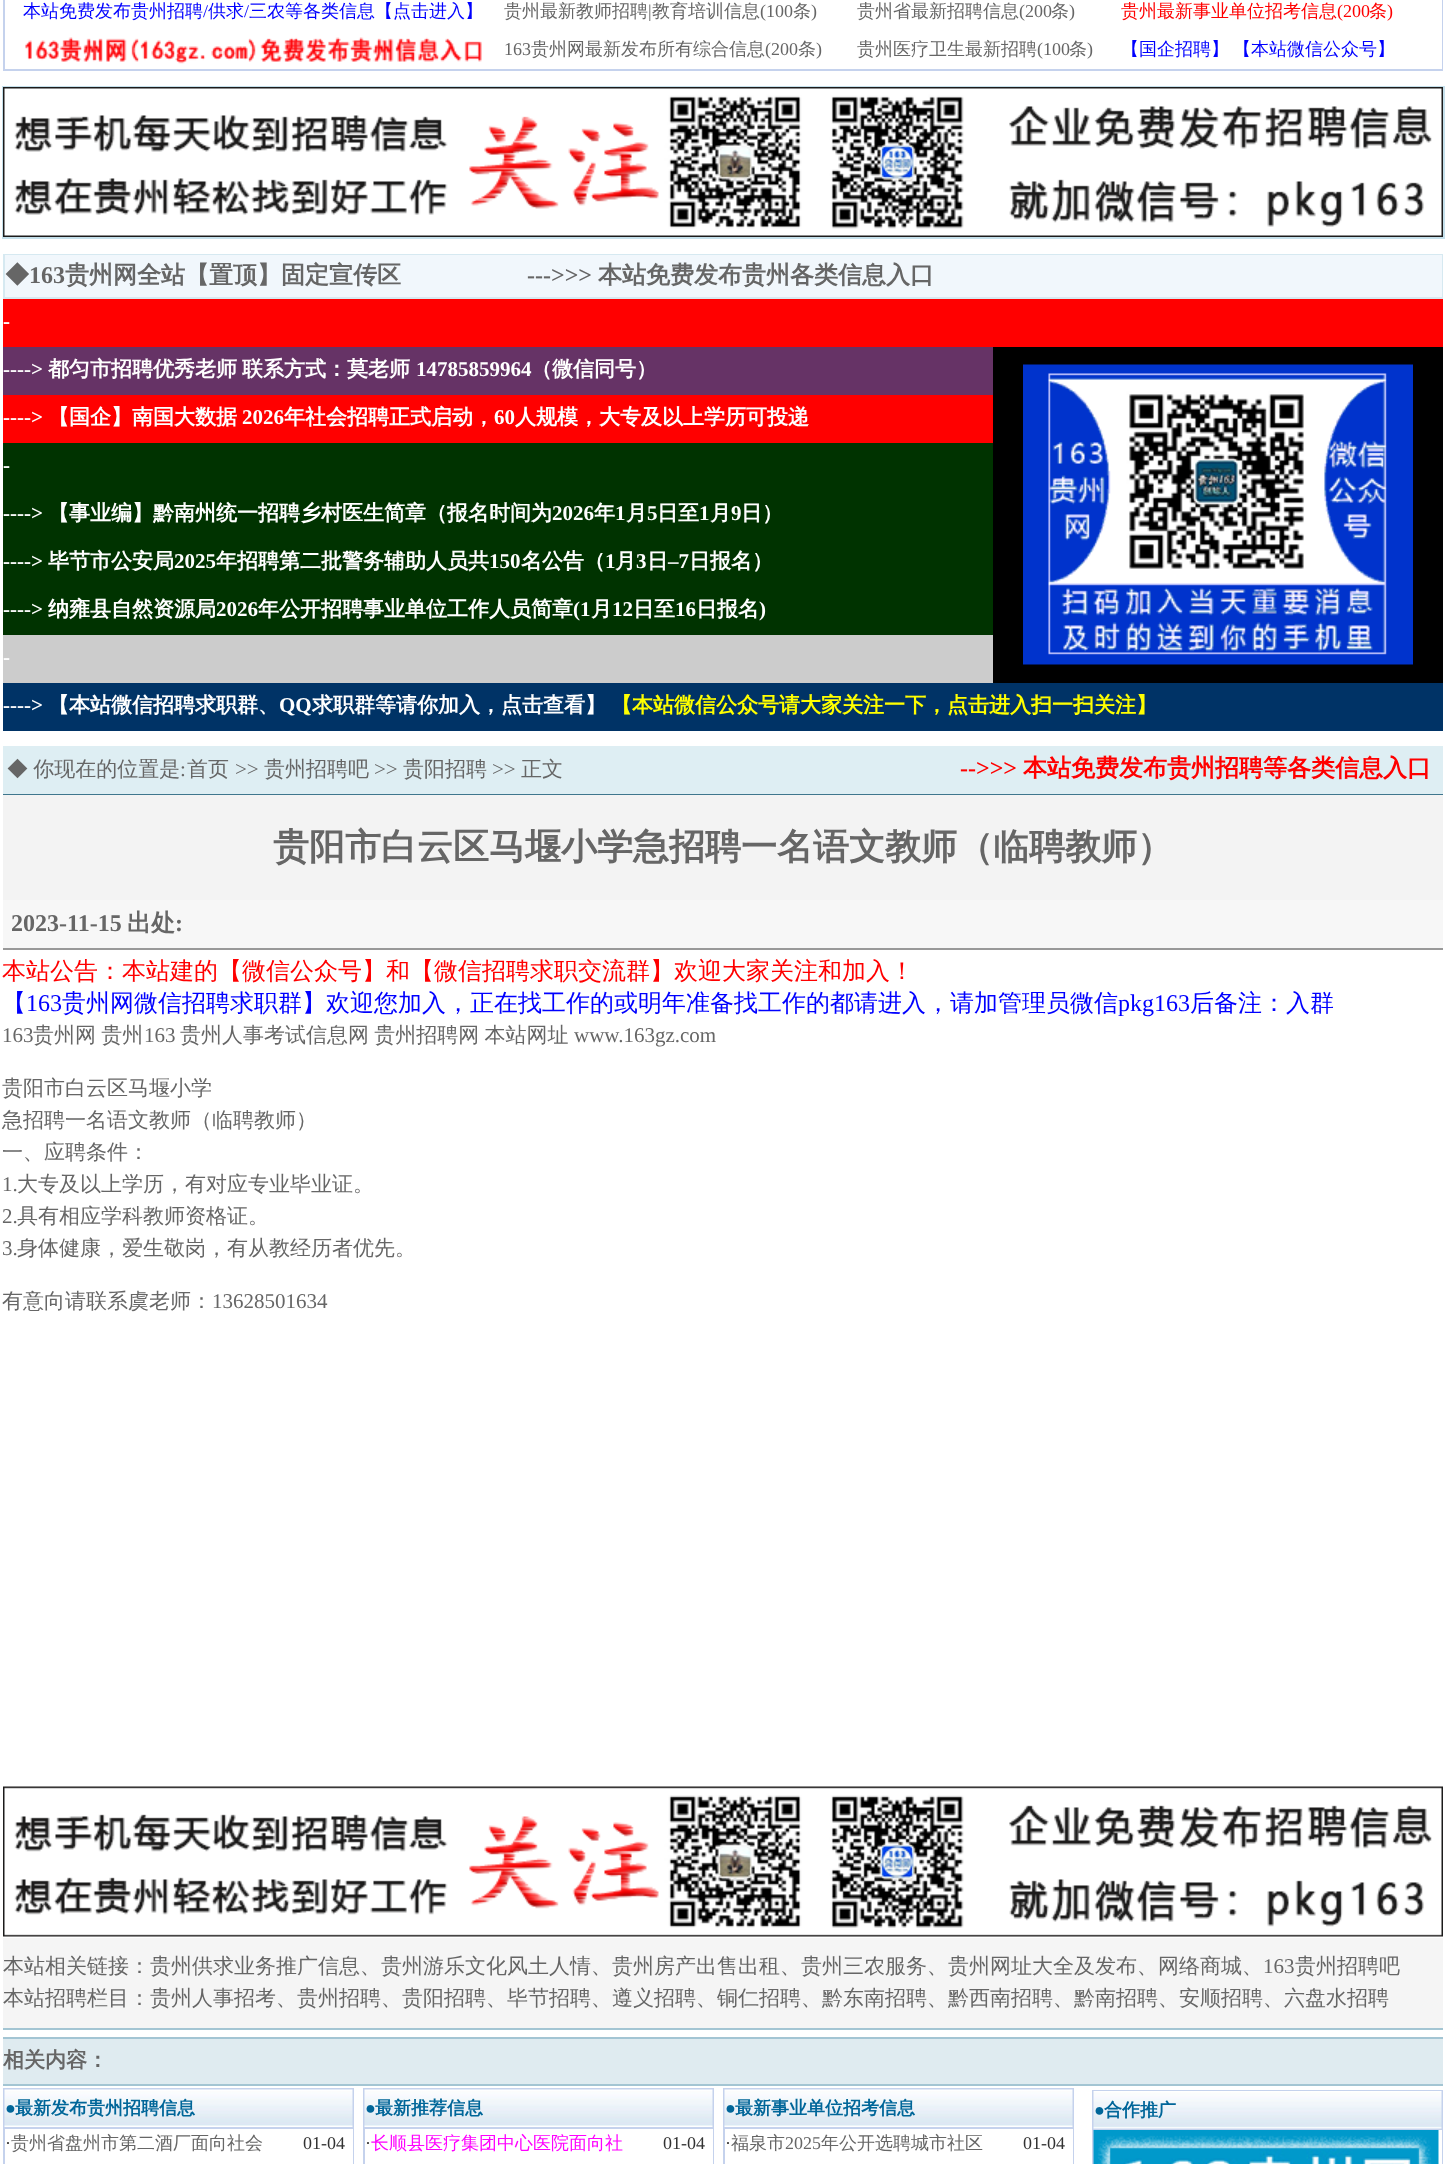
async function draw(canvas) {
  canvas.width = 1445;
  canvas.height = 2164;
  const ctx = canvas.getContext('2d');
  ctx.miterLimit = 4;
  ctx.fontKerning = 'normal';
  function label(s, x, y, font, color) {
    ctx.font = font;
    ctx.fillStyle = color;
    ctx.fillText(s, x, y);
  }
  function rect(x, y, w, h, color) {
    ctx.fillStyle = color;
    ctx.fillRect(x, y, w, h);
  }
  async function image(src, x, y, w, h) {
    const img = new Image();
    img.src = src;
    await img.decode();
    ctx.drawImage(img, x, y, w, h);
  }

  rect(0, 0, 1445, 2164, '#fff');
  rect(3, 0, 1440, 71, '#c5d2ed');
  rect(5, 0, 1437, 69, '#fff');
  label('本站免费发布贵州招聘', 23, 17, '500 18px WenQuanYi Zen Hei', '#00f');
  label('/', 203, 17, '18px Liberation Serif', '#00f');
  label('供求', 208, 17, '500 18px WenQuanYi Zen Hei', '#00f');
  label('/', 244, 17, '18px Liberation Serif', '#00f');
  label('三农等各类信息【点击进入】', 249, 17, '500 18px WenQuanYi Zen Hei', '#00f');
  label('贵州最新教师招聘', 504, 17, '500 18px WenQuanYi Zen Hei', '#666');
  label('|', 648, 17, '18px Liberation Serif', '#666');
  label('教育培训信息', 652, 17, '500 18px WenQuanYi Zen Hei', '#666');
  label('(100', 760, 17, '18px Liberation Serif', '#666');
  label('条', 793, 17, '500 18px WenQuanYi Zen Hei', '#666');
  label(')', 811, 17, '18px Liberation Serif', '#666');
  label('贵州省最新招聘信息', 857, 17, '500 18px WenQuanYi Zen Hei', '#666');
  label('(200', 1019, 17, '18px Liberation Serif', '#666');
  label('条', 1051, 17, '500 18px WenQuanYi Zen Hei', '#666');
  label(')', 1069, 17, '18px Liberation Serif', '#666');
  label('贵州最新事业单位招考信息', 1121, 17, '500 18px WenQuanYi Zen Hei', '#f00');
  label('(200', 1337, 17, '18px Liberation Serif', '#f00');
  label('条', 1369, 17, '500 18px WenQuanYi Zen Hei', '#f00');
  label(')', 1387, 17, '18px Liberation Serif', '#f00');
  await image('assets/img1.png', 25, 37, 457, 27);
  label('163', 504, 55, '18px Liberation Serif', '#666');
  label('贵州网最新发布所有综合信息', 531, 55, '500 18px WenQuanYi Zen Hei', '#666');
  label('(200', 765, 55, '18px Liberation Serif', '#666');
  label('条', 798, 55, '500 18px WenQuanYi Zen Hei', '#666');
  label(')', 816, 55, '18px Liberation Serif', '#666');
  label('贵州医疗卫生最新招聘', 857, 55, '500 18px WenQuanYi Zen Hei', '#666');
  label('(100', 1037, 55, '18px Liberation Serif', '#666');
  label('条', 1069, 55, '500 18px WenQuanYi Zen Hei', '#666');
  label(')', 1087, 55, '18px Liberation Serif', '#666');
  label('【国企招聘】', 1121, 55, '500 18px WenQuanYi Zen Hei', '#00f');
  label('【本站微信公众号】', 1233, 55, '500 18px WenQuanYi Zen Hei', '#00f');
  rect(2, 86, 1443, 153, '#c5e0eb');
  await image('assets/img2.png', 3, 87, 1440, 150);
  rect(3, 254, 1440, 45, '#d6e9f1');
  rect(5, 255, 1437, 42, '#f1f7fc');
  label('◆', 5, 283, 'bold 24px WenQuanYi Zen Hei', '#666');
  label('163', 29, 283, 'bold 24px Liberation Serif', '#666');
  label('贵州网全站【置顶】固定宣传区', 65, 283, 'bold 24px WenQuanYi Zen Hei', '#666');
  label('--->>>', 527, 283, 'bold 24px Liberation Serif', '#666');
  label('本站免费发布贵州各类信息入口', 598, 283, 'bold 24px WenQuanYi Zen Hei', '#666');
  rect(3, 299, 1440, 48, '#f00');
  label('-', 3, 328, 'bold 21px Liberation Serif', '#fff');
  rect(3, 347, 990, 48, '#636');
  label('---->', 3, 376, 'bold 21px Liberation Serif', '#fff');
  label('都匀市招聘优秀老师', 48, 376, 'bold 21px WenQuanYi Zen Hei', '#fff');
  label('联系方式：莫老师', 242, 376, 'bold 21px WenQuanYi Zen Hei', '#fff');
  label('14785859964', 416, 376, 'bold 21px Liberation Serif', '#fff');
  label('（微信同号）', 531, 376, 'bold 21px WenQuanYi Zen Hei', '#fff');
  rect(993, 347, 450, 336, '#000');
  await image('assets/img3.png', 1023, 364, 390, 301);
  rect(3, 395, 990, 48, '#f00');
  label('---->', 3, 424, 'bold 21px Liberation Serif', '#fff');
  label('【国企】南国大数据', 48, 424, 'bold 21px WenQuanYi Zen Hei', '#fff');
  label('2026', 242, 424, 'bold 21px Liberation Serif', '#fff');
  label('年社会招聘正式启动，', 284, 424, 'bold 21px WenQuanYi Zen Hei', '#fff');
  label('60', 494, 424, 'bold 21px Liberation Serif', '#fff');
  label('人规模，大专及以上学历可投递', 515, 424, 'bold 21px WenQuanYi Zen Hei', '#fff');
  rect(3, 443, 990, 192, '#030');
  label('-', 3, 472, 'bold 21px Liberation Serif', '#fff');
  label('---->', 3, 520, 'bold 21px Liberation Serif', '#fff');
  label('【事业编】黔南州统一招聘乡村医生简章（报名时间为', 48, 520, 'bold 21px WenQuanYi Zen Hei', '#fff');
  label('2026', 552, 520, 'bold 21px Liberation Serif', '#fff');
  label('年', 594, 520, 'bold 21px WenQuanYi Zen Hei', '#fff');
  label('1', 615, 520, 'bold 21px Liberation Serif', '#fff');
  label('月', 626, 520, 'bold 21px WenQuanYi Zen Hei', '#fff');
  label('5', 647, 520, 'bold 21px Liberation Serif', '#fff');
  label('日至', 657, 520, 'bold 21px WenQuanYi Zen Hei', '#fff');
  label('1', 699, 520, 'bold 21px Liberation Serif', '#fff');
  label('月', 710, 520, 'bold 21px WenQuanYi Zen Hei', '#fff');
  label('9', 731, 520, 'bold 21px Liberation Serif', '#fff');
  label('日）', 741, 520, 'bold 21px WenQuanYi Zen Hei', '#fff');
  label('---->', 3, 568, 'bold 21px Liberation Serif', '#fff');
  label('毕节市公安局', 48, 568, 'bold 21px WenQuanYi Zen Hei', '#fff');
  label('2025', 174, 568, 'bold 21px Liberation Serif', '#fff');
  label('年招聘第二批警务辅助人员共', 216, 568, 'bold 21px WenQuanYi Zen Hei', '#fff');
  label('150', 489, 568, 'bold 21px Liberation Serif', '#fff');
  label('名公告（', 521, 568, 'bold 21px WenQuanYi Zen Hei', '#fff');
  label('1', 605, 568, 'bold 21px Liberation Serif', '#fff');
  label('月', 615, 568, 'bold 21px WenQuanYi Zen Hei', '#fff');
  label('3', 636, 568, 'bold 21px Liberation Serif', '#fff');
  label('日', 647, 568, 'bold 21px WenQuanYi Zen Hei', '#fff');
  label('–7', 668, 568, 'bold 21px Liberation Serif', '#fff');
  label('日报名）', 689, 568, 'bold 21px WenQuanYi Zen Hei', '#fff');
  label('---->', 3, 616, 'bold 21px Liberation Serif', '#fff');
  label('纳雍县自然资源局', 48, 616, 'bold 21px WenQuanYi Zen Hei', '#fff');
  label('2026', 216, 616, 'bold 21px Liberation Serif', '#fff');
  label('年公开招聘事业单位工作人员简章', 258, 616, 'bold 21px WenQuanYi Zen Hei', '#fff');
  label('(1', 573, 616, 'bold 21px Liberation Serif', '#fff');
  label('月', 591, 616, 'bold 21px WenQuanYi Zen Hei', '#fff');
  label('12', 612, 616, 'bold 21px Liberation Serif', '#fff');
  label('日至', 633, 616, 'bold 21px WenQuanYi Zen Hei', '#fff');
  label('16', 675, 616, 'bold 21px Liberation Serif', '#fff');
  label('日报名', 696, 616, 'bold 21px WenQuanYi Zen Hei', '#fff');
  label(')', 759, 616, 'bold 21px Liberation Serif', '#fff');
  rect(3, 635, 990, 48, '#ccc');
  label('-', 3, 664, 'bold 21px Liberation Serif', '#fff');
  rect(3, 683, 1440, 48, '#036');
  label('---->', 3, 712, 'bold 21px Liberation Serif', '#fff');
  label('【本站微信招聘求职群、', 48, 712, 'bold 21px WenQuanYi Zen Hei', '#fff');
  label('QQ', 279, 712, 'bold 21px Liberation Serif', '#fff');
  label('求职群等请你加入，点击查看】', 312, 712, 'bold 21px WenQuanYi Zen Hei', '#fff');
  label('【本站微信公众号请大家关注一下，点击进入扫一扫关注】', 611, 712, 'bold 21px WenQuanYi Zen Hei', '#ff0');
  rect(3, 746, 1440, 48, '#deeef3');
  ctx.wordSpacing = '-1px';
  label('◆ 你现在的位置是', 7, 776, '500 21px WenQuanYi Zen Hei', '#666');
  ctx.wordSpacing = '0px';
  label(':', 180, 776, '21px Liberation Serif', '#666');
  label('首页', 187, 776, '500 21px WenQuanYi Zen Hei', '#666');
  label('>>', 235, 776, '21px Liberation Serif', '#666');
  label('贵州招聘吧', 264, 776, '500 21px WenQuanYi Zen Hei', '#666');
  label('>>', 374, 776, '21px Liberation Serif', '#666');
  label('贵阳招聘', 403, 776, '500 21px WenQuanYi Zen Hei', '#666');
  label('>>', 492, 776, '21px Liberation Serif', '#666');
  label('正文', 521, 776, '500 21px WenQuanYi Zen Hei', '#666');
  label('-->>>', 960, 776, 'bold 24px Liberation Serif', '#f00');
  label('本站免费发布贵州招聘等各类信息入口', 1023, 776, 'bold 24px WenQuanYi Zen Hei', '#f00');
  rect(3, 794, 1440, 1, '#3f768d');
  rect(3, 795, 1440, 105, '#f3f3f3');
  label('贵阳市白云区马堰小学急招聘一名语文教师（临聘教师）', 273, 859, 'bold 36px WenQuanYi Zen Hei', '#666');
  rect(3, 900, 1440, 48, '#f7f7f7');
  label('2023-11-15', 11, 931, 'bold 24px Liberation Serif', '#666');
  label('出处', 127, 931, 'bold 24px WenQuanYi Zen Hei', '#666');
  label(':', 175, 931, 'bold 24px Liberation Serif', '#666');
  rect(3, 948, 1440, 2, '#999');
  label('本站公告：本站建的【微信公众号】和【微信招聘求职交流群】欢迎大家关注和加入！', 2, 979, '500 24px WenQuanYi Zen Hei', '#f00');
  label('【', 2, 1011, '500 24px WenQuanYi Zen Hei', '#00f');
  label('163', 26, 1011, '24px Liberation Serif', '#00f');
  label('贵州网微信招聘求职群】欢迎您加入，正在找工作的或明年准备找工作的都请进入，请加管理员微信', 62, 1011, '500 24px WenQuanYi Zen Hei', '#00f');
  label('pkg163', 1118, 1011, '24px Liberation Serif', '#00f');
  label('后备注：入群', 1190, 1011, '500 24px WenQuanYi Zen Hei', '#00f');
  label('163', 2, 1042, '21px Liberation Serif', '#666');
  ctx.wordSpacing = '-1px';
  label('贵州网 贵州', 33, 1042, '500 21px WenQuanYi Zen Hei', '#666');
  ctx.wordSpacing = '0px';
  label('163', 144, 1042, '21px Liberation Serif', '#666');
  ctx.wordSpacing = '-1px';
  label('贵州人事考试信息网 贵州招聘网 本站网址', 180, 1042, '500 21px WenQuanYi Zen Hei', '#666');
  ctx.wordSpacing = '0px';
  label('www.163gz.com', 574, 1042, '21px Liberation Serif', '#666');
  label('贵阳市白云区马堰小学', 2, 1095, '500 21px WenQuanYi Zen Hei', '#666');
  label('急招聘一名语文教师（临聘教师）', 2, 1127, '500 21px WenQuanYi Zen Hei', '#666');
  label('一、应聘条件：', 2, 1159, '500 21px WenQuanYi Zen Hei', '#666');
  label('1.', 2, 1191, '21px Liberation Serif', '#666');
  label('大专及以上学历，有对应专业毕业证。', 17, 1191, '500 21px WenQuanYi Zen Hei', '#666');
  label('2.', 2, 1223, '21px Liberation Serif', '#666');
  label('具有相应学科教师资格证。', 17, 1223, '500 21px WenQuanYi Zen Hei', '#666');
  label('3.', 2, 1255, '21px Liberation Serif', '#666');
  label('身体健康，爱生敬岗，有从教经历者优先。', 17, 1255, '500 21px WenQuanYi Zen Hei', '#666');
  label('有意向请联系虞老师：', 2, 1308, '500 21px WenQuanYi Zen Hei', '#666');
  label('13628501634', 212, 1308, '21px Liberation Serif', '#666');
  await image('assets/img4.png', 3, 1786, 1440, 151);
  rect(3, 1938, 1440, 90, '#f5f5f5');
  label('本站相关链接：贵州供求业务推广信息、贵州游乐文化风土人情、贵州房产出售出租、贵州三农服务、贵州网址大全及发布、网络商城、', 3, 1973, '500 21px WenQuanYi Zen Hei', '#666');
  label('163', 1263, 1973, '21px Liberation Serif', '#666');
  label('贵州招聘吧', 1295, 1973, '500 21px WenQuanYi Zen Hei', '#666');
  label('本站招聘栏目：贵州人事招考、贵州招聘、贵阳招聘、毕节招聘、遵义招聘、铜仁招聘、黔东南招聘、黔西南招聘、黔南招聘、安顺招聘、六盘水招聘', 3, 2005, '500 21px WenQuanYi Zen Hei', '#666');
  rect(3, 2028, 1440, 2, '#a3c5d3');
  rect(3, 2037, 1440, 2, '#a3c5d3');
  rect(3, 2039, 1440, 45, '#dfebf0');
  label('相关内容：', 3, 2067, 'bold 21px WenQuanYi Zen Hei', '#666');
  rect(3, 2084, 1440, 2, '#a3c5d3');
  rect(3, 2088, 351, 76, '#c5d2ed');
  await image('assets/img5.png', 4, 2089, 349, 38);
  label('●', 5, 2114, 'bold 18px Liberation Serif', '#069');
  label('最新发布贵州招聘信息', 15, 2114, 'bold 18px WenQuanYi Zen Hei', '#069');
  rect(5, 2129, 348, 35, '#fff');
  label('·', 5, 2149, '18px Liberation Serif', '#333');
  label('贵州省盘州市第二酒厂面向社会', 11, 2149, '500 18px WenQuanYi Zen Hei', '#666');
  label('01-04', 303, 2149, '18px Liberation Serif', '#333');
  rect(363, 2088, 351, 76, '#c5d2ed');
  await image('assets/img5.png', 364, 2089, 349, 38);
  label('●', 365, 2114, 'bold 18px Liberation Serif', '#069');
  label('最新推荐信息', 375, 2114, 'bold 18px WenQuanYi Zen Hei', '#069');
  rect(365, 2129, 348, 35, '#fff');
  label('·', 365, 2149, '18px Liberation Serif', '#333');
  label('长顺县医疗集团中心医院面向社', 371, 2149, '500 18px WenQuanYi Zen Hei', '#f0f');
  label('01-04', 663, 2149, '18px Liberation Serif', '#333');
  rect(723, 2088, 351, 76, '#c5d2ed');
  await image('assets/img5.png', 724, 2089, 349, 38);
  label('●', 725, 2114, 'bold 18px Liberation Serif', '#069');
  label('最新事业单位招考信息', 735, 2114, 'bold 18px WenQuanYi Zen Hei', '#069');
  rect(725, 2129, 348, 35, '#fff');
  label('·', 725, 2149, '18px Liberation Serif', '#333');
  label('福泉市', 731, 2149, '500 18px WenQuanYi Zen Hei', '#666');
  label('2025', 785, 2149, '18px Liberation Serif', '#666');
  label('年公开选聘城市社区', 821, 2149, '500 18px WenQuanYi Zen Hei', '#666');
  label('01-04', 1023, 2149, '18px Liberation Serif', '#333');
  rect(1092, 2090, 351, 74, '#c5d2ed');
  await image('assets/img6.png', 1093, 2091, 349, 38);
  label('●', 1094, 2116, 'bold 18px Liberation Serif', '#069');
  label('合作推广', 1104, 2116, 'bold 18px WenQuanYi Zen Hei', '#069');
  rect(1438, 2130, 4, 34, '#fff');
  await image('assets/img7.png', 1093, 2130, 346, 34);
}

draw(document.querySelector('canvas'));
